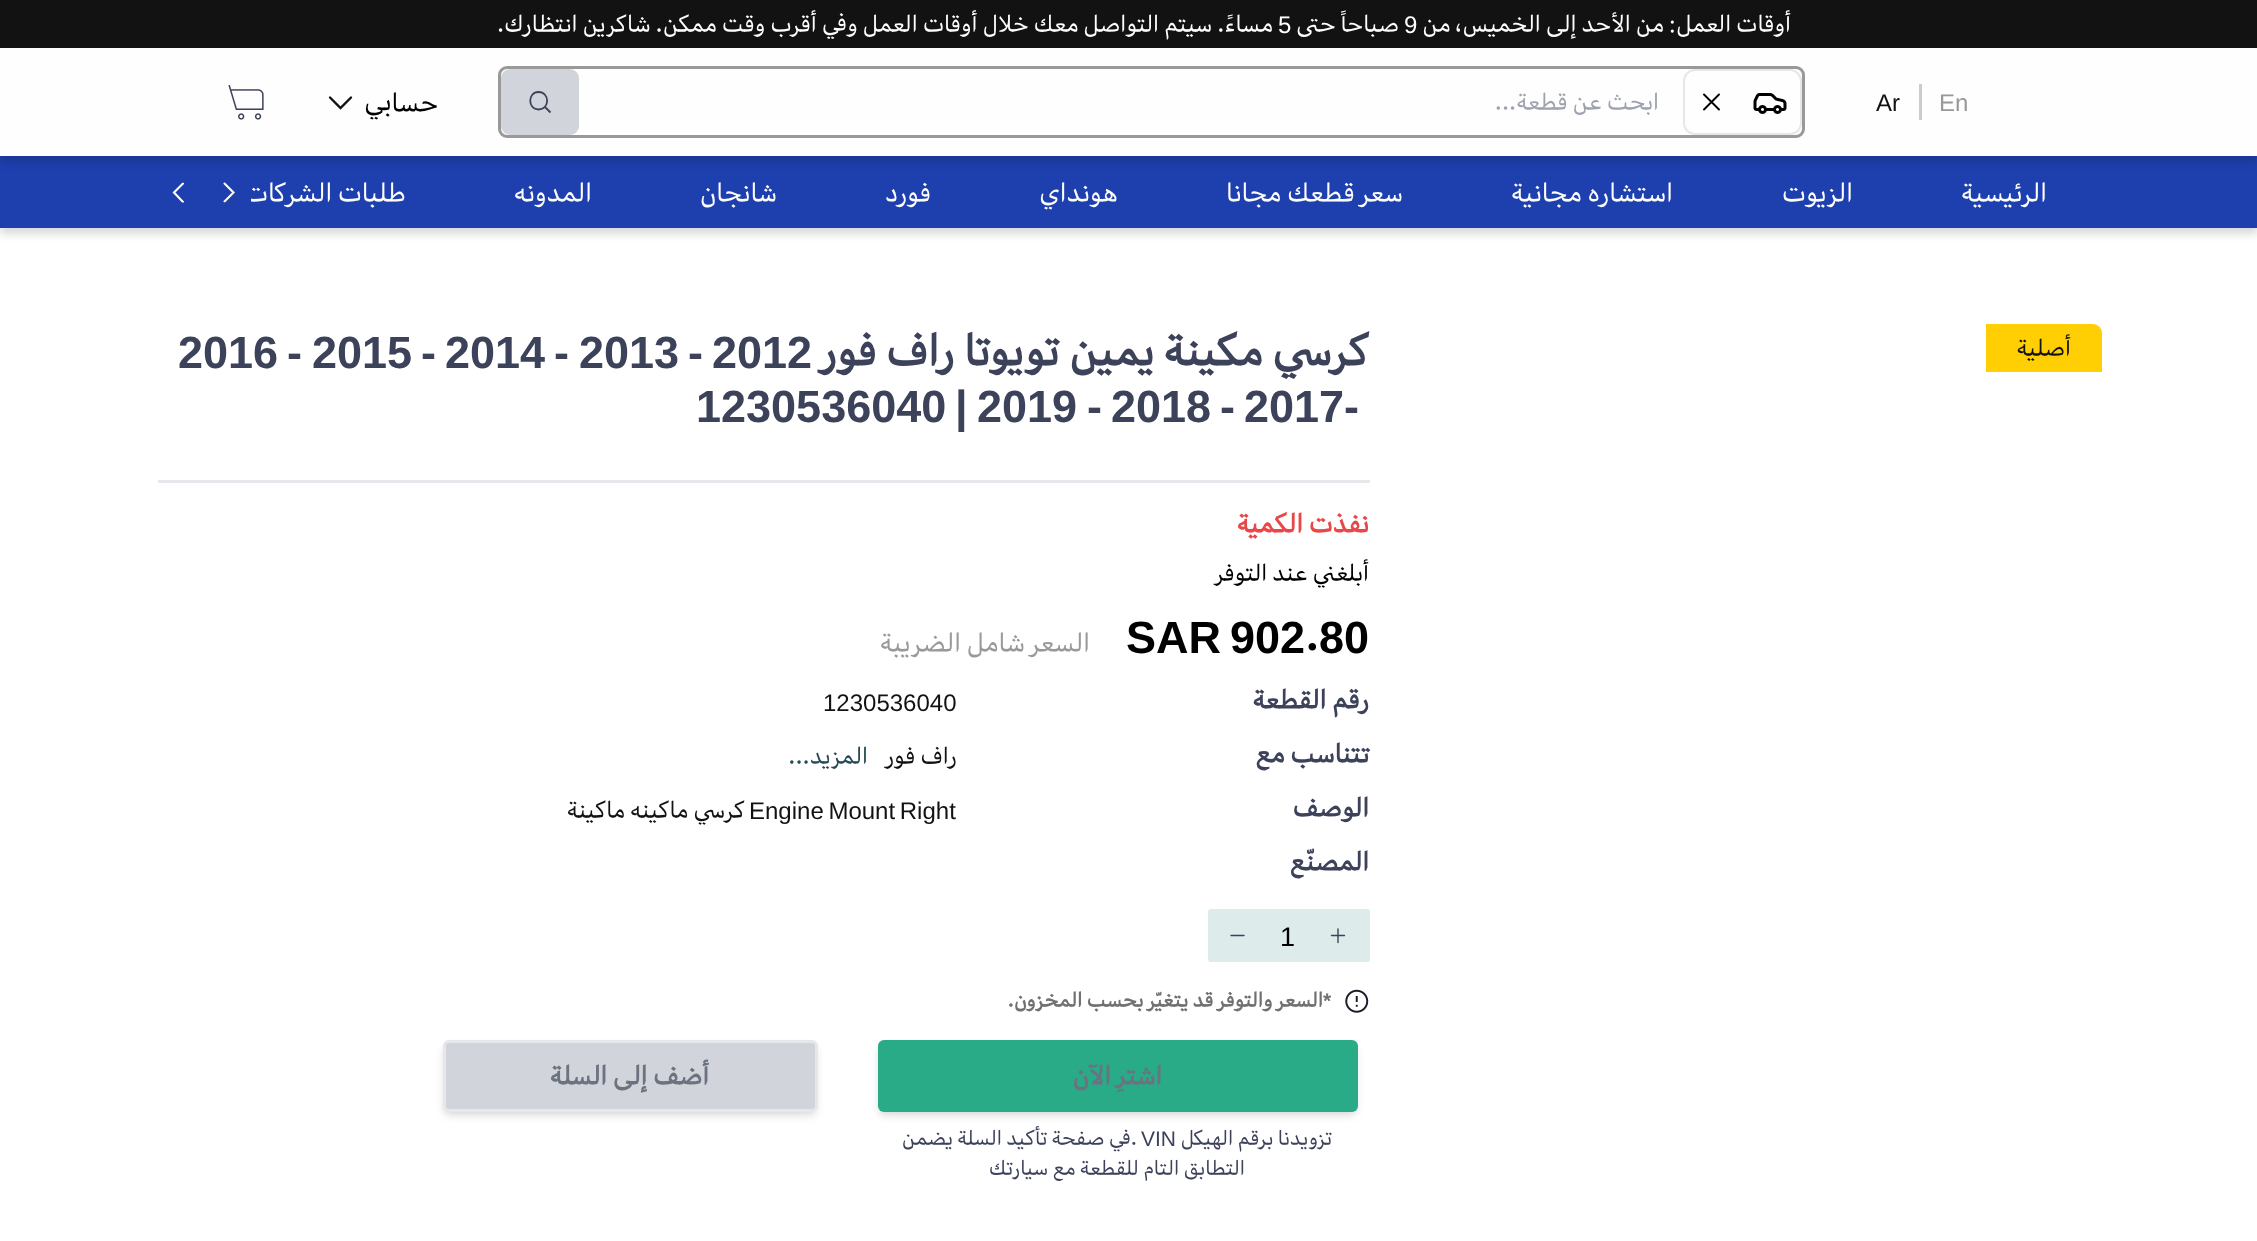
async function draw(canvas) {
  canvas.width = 2257;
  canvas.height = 1241;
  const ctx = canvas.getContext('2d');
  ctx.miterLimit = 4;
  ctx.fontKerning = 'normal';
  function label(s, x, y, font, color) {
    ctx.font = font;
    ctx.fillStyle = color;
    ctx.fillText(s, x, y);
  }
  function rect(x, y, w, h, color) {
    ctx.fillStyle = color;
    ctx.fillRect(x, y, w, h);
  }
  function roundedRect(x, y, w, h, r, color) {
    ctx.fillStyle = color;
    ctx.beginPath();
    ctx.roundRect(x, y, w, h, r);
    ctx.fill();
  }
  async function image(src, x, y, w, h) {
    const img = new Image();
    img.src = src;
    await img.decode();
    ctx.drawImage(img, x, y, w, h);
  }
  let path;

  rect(0, 0, 2257, 1241, '#fff');
  ctx.fillStyle = '#00000026';
  ctx.filter = 'blur(4.5px)';
  ctx.beginPath();
  ctx.rect(0, 162, 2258, 72);
  ctx.fill();
  ctx.filter = 'none';
  rect(0, 156, 2257, 72, '#1e40af');
  ctx.fillStyle = '#00000026';
  ctx.filter = 'blur(4.5px)';
  ctx.beginPath();
  ctx.rect(0, 6, 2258, 156);
  ctx.fill();
  ctx.filter = 'none';
  rect(0, 48, 2257, 108, '#fefefe');
  rect(0, 0, 2257, 48, '#121212');
  ctx.direction = 'rtl';
  label('أوقات العمل: من الأحد إلى الخميس، من', 1791, 33, '24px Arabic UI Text', '#fefefe');
  ctx.direction = 'ltr';
  label('9', 1404, 33, '24px Liberation Sans', '#fefefe');
  ctx.direction = 'rtl';
  label('صباحاً حتى', 1399, 33, '24px Arabic UI Text', '#fefefe');
  ctx.direction = 'ltr';
  label('5', 1278, 33, '24px Liberation Sans', '#fefefe');
  ctx.direction = 'rtl';
  label('مساءً. سيتم التواصل معك خلال أوقات العمل وفي أقرب وقت ممكن. شاكرين انتظارك.', 1273, 33, '24px Arabic UI Text', '#fefefe');
  ctx.direction = 'ltr';
  label('En', 1939, 111, '24px Liberation Sans', '#999');
  rect(1919, 84, 3, 36, '#ccc');
  label('Ar', 1876, 111, '24px Liberation Sans', '#121212');
  ctx.beginPath();
  ctx.roundRect(499.5, 67.5, 1304, 69, 7.5);
  ctx.strokeStyle = '#999';
  ctx.lineWidth = 3;
  ctx.stroke();
  ctx.beginPath();
  ctx.roundRect(1684, 70, 117, 64, 11);
  ctx.strokeStyle = '#e5e7eb';
  ctx.lineWidth = 2;
  ctx.stroke();
  await image('assets/img1.png', 1753, 93, 34, 21);
  path = new Path2D('M1719 94.5L1704 109.5M1704 94.5L1719 109.5');
  ctx.strokeStyle = '#000';
  ctx.lineWidth = 1.9;
  ctx.lineCap = 'round';
  ctx.lineJoin = 'round';
  ctx.stroke(path);
  ctx.direction = 'rtl';
  label('ابحث عن قطعة...', 1659, 111, '24px Arabic UI Text', '#9ca3af');
  roundedRect(501, 69, 78, 66, 9, '#d1d5db');
  path = new Path2D('M550.5 112.5L544.5 106.5M538.5 109.5C527.5 109.5 527.5 92 538.5 92C550 92 550 109.5 538.5 109.5Z');
  ctx.strokeStyle = '#3c425a';
  ctx.lineWidth = 1.8;
  ctx.lineCap = 'butt';
  ctx.stroke(path);
  label('حسابي', 438, 113, '27px Arabic UI Text', '#000');
  path = new Path2D('M351 97.5L340.5 108L330 97.5');
  ctx.strokeStyle = '#121212';
  ctx.lineWidth = 2.4;
  ctx.lineCap = 'round';
  ctx.lineJoin = 'miter';
  ctx.stroke(path);
  await image('assets/img2.png', 228, 85, 36, 35);
  label('الرئيسية', 2047, 203, '27px Arabic UI Text', '#fefefe');
  label('الزيوت', 1853, 203, '27px Arabic UI Text', '#fefefe');
  label('استشاره مجانية', 1673, 203, '27px Arabic UI Text', '#fefefe');
  label('سعر قطعك مجانا', 1403, 203, '27px Arabic UI Text', '#fefefe');
  label('هونداي', 1118, 203, '27px Arabic UI Text', '#fefefe');
  label('فورد', 931, 203, '27px Arabic UI Text', '#fefefe');
  label('شانجان', 777, 203, '27px Arabic UI Text', '#fefefe');
  label('المدونه', 592, 203, '27px Arabic UI Text', '#fefefe');
  ctx.save();
  ctx.beginPath();
  ctx.rect(251, 156, 1851, 72);
  ctx.clip();
  label('طلبات الشركات', 406, 203, '27px Arabic UI Text', '#fefefe');
  ctx.restore();
  ctx.save();
  path = new Path2D('M218.5 202.5V181.5H238V202.5Z');
  ctx.clip(path);
  path = new Path2D('M224.5 183.5L233.5 192.5L224.5 201.5');
  ctx.strokeStyle = '#fefefe';
  ctx.lineWidth = 2.1;
  ctx.stroke(path);
  ctx.restore();
  ctx.save();
  path = new Path2D('M189 181.5V202.5H169.5V181.5Z');
  ctx.clip(path);
  path = new Path2D('M168.5 203V182.5H188V203Z');
  ctx.clip(path);
  path = new Path2D('M183 202L174 192.5L183 183.5');
  ctx.strokeStyle = '#fefefe';
  ctx.lineWidth = 2.1;
  ctx.stroke(path);
  ctx.restore();
  ctx.fillStyle = '#ffce03';
  ctx.beginPath();
  ctx.roundRect(1986, 324, 116, 48, [0, 9, 0, 0]);
  ctx.fill();
  label('أصلية', 2071, 357, '24px Arabic UI Text', '#121212');
  label('كرسي مكينة يمين', 1369, 368, 'bold 45px Arabic UI Text', '#3c425a');
  label('تويوتا راف فور', 1059, 368, 'bold 45px Arabic UI Text', '#3c425a');
  ctx.direction = 'ltr';
  label('2012', 712, 368, 'bold 45px Liberation Sans', '#3c425a');
  label('-', 688, 368, 'bold 45px Liberation Sans', '#3c425a');
  label('2013', 579, 368, 'bold 45px Liberation Sans', '#3c425a');
  label('-', 554, 368, 'bold 45px Liberation Sans', '#3c425a');
  label('2014', 445, 368, 'bold 45px Liberation Sans', '#3c425a');
  label('-', 421, 368, 'bold 45px Liberation Sans', '#3c425a');
  label('2015', 312, 368, 'bold 45px Liberation Sans', '#3c425a');
  label('-', 287, 368, 'bold 45px Liberation Sans', '#3c425a');
  label('2016', 178, 368, 'bold 45px Liberation Sans', '#3c425a');
  label('2017-', 1244, 422, 'bold 45px Liberation Sans', '#3c425a');
  label('-', 1220, 422, 'bold 45px Liberation Sans', '#3c425a');
  label('2018', 1111, 422, 'bold 45px Liberation Sans', '#3c425a');
  label('-', 1087, 422, 'bold 45px Liberation Sans', '#3c425a');
  label('2019', 977, 422, 'bold 45px Liberation Sans', '#3c425a');
  label('|', 955, 422, 'bold 45px Liberation Sans', '#3c425a');
  label('1230536040', 696, 422, 'bold 45px Liberation Sans', '#3c425a');
  rect(158, 480, 1212, 3, '#e5e7eb');
  ctx.direction = 'rtl';
  label('نفذت الكمية', 1369, 534, 'bold 27px Arabic UI Text', '#e74949');
  label('أبلغني عند التوفر', 1369, 582, '24px Arabic UI Text', '#000');
  ctx.direction = 'ltr';
  label('80', 1319, 653, 'bold 45px Liberation Sans', '#000');
  label('.', 1305, 653, 'bold 45px Arabic UI Text', '#000');
  label('902', 1230, 653, 'bold 45px Liberation Sans', '#000');
  label('SAR', 1126, 653, 'bold 45px Liberation Sans', '#000');
  ctx.direction = 'rtl';
  label('السعر شامل الضريبة', 1090, 653, '27px Arabic UI Text', '#999');
  label('رقم القطعة', 1369, 710, 'bold 27px Arabic UI Text', '#3c425a');
  ctx.direction = 'ltr';
  label('1230536040', 823, 711, '24px Liberation Sans', '#121212');
  ctx.direction = 'rtl';
  label('تتناسب مع', 1369, 764, 'bold 27px Arabic UI Text', '#3c425a');
  label('راف فور', 957, 765, '24px Arabic UI Text', '#121212');
  label('المزيد...', 868, 765, '24px Arabic UI Text', '#254a55');
  label('الوصف', 1369, 818, 'bold 27px Arabic UI Text', '#3c425a');
  ctx.wordSpacing = '-2px';
  ctx.direction = 'ltr';
  label('Engine Mount Right', 749, 819, '24px Liberation Sans', '#121212');
  ctx.wordSpacing = '0px';
  ctx.direction = 'rtl';
  label('كرسي ماكينه ماكينة', 745, 819, '24px Arabic UI Text', '#121212');
  label('المصنّع', 1369, 872, 'bold 27px Arabic UI Text', '#3c425a');
  roundedRect(1208, 909, 162, 53, 3, '#ddebeb');
  path = new Path2D('M1338 929V942.5M1331.5 935.5H1344.5');
  ctx.strokeStyle = '#3c425a';
  ctx.lineWidth = 1.4;
  ctx.lineJoin = 'round';
  ctx.stroke(path);
  ctx.direction = 'ltr';
  label('1', 1280, 946, '27px Liberation Sans', '#000');
  path = new Path2D('M1231 935.5H1244');
  ctx.stroke(path);
  await image('assets/img3.png', 1345, 989, 24, 24);
  label('*', 1323, 1008, 'bold 21px Liberation Sans', '#717171');
  ctx.direction = 'rtl';
  label('السعر والتوفر قد يتغيّر بحسب المخزون.', 1323, 1008, 'bold 21px Arabic UI Text', '#717171');
  ctx.fillStyle = '#0000000f';
  ctx.filter = 'blur(3px)';
  ctx.beginPath();
  ctx.roundRect(879, 1044, 477, 69, 5);
  ctx.fill();
  ctx.filter = 'none';
  ctx.fillStyle = '#0000001a';
  ctx.filter = 'blur(4.5px)';
  ctx.beginPath();
  ctx.roundRect(879, 1047, 477, 69, 5);
  ctx.fill();
  ctx.filter = 'none';
  roundedRect(878, 1040, 480, 72, 6, '#29ab87');
  label('اشترِ الآن', 1162, 1086, 'bold 27px Arabic UI Text', '#6b7280');
  ctx.fillStyle = '#0000000f';
  ctx.filter = 'blur(3px)';
  ctx.beginPath();
  ctx.roundRect(444, 1044, 372, 69, 5);
  ctx.fill();
  ctx.filter = 'none';
  ctx.fillStyle = '#0000001a';
  ctx.filter = 'blur(4.5px)';
  ctx.beginPath();
  ctx.roundRect(444, 1047, 372, 69, 5);
  ctx.fill();
  ctx.filter = 'none';
  ctx.fillStyle = '#d1d5db';
  ctx.beginPath();
  ctx.roundRect(444.5, 1041.5, 372, 69, 4.5);
  ctx.fill();
  ctx.strokeStyle = '#e5e7eb';
  ctx.lineWidth = 3;
  ctx.lineJoin = 'miter';
  ctx.stroke();
  label('أضف إلى السلة', 709, 1086, 'bold 27px Arabic UI Text', '#6b7280');
  label('تزويدنا برقم الهيكل', 1332, 1146, '21px Arabic UI Text', '#3c425a');
  ctx.direction = 'ltr';
  label('VIN', 1141, 1146, '21px Liberation Sans', '#3c425a');
  ctx.direction = 'rtl';
  label('.في صفحة تأكيد السلة يضمن', 1137, 1146, '21px Arabic UI Text', '#3c425a');
  label('التطابق التام للقطعة مع سيارتك', 1245, 1176, '21px Arabic UI Text', '#3c425a');
}

draw(document.querySelector('canvas'));
